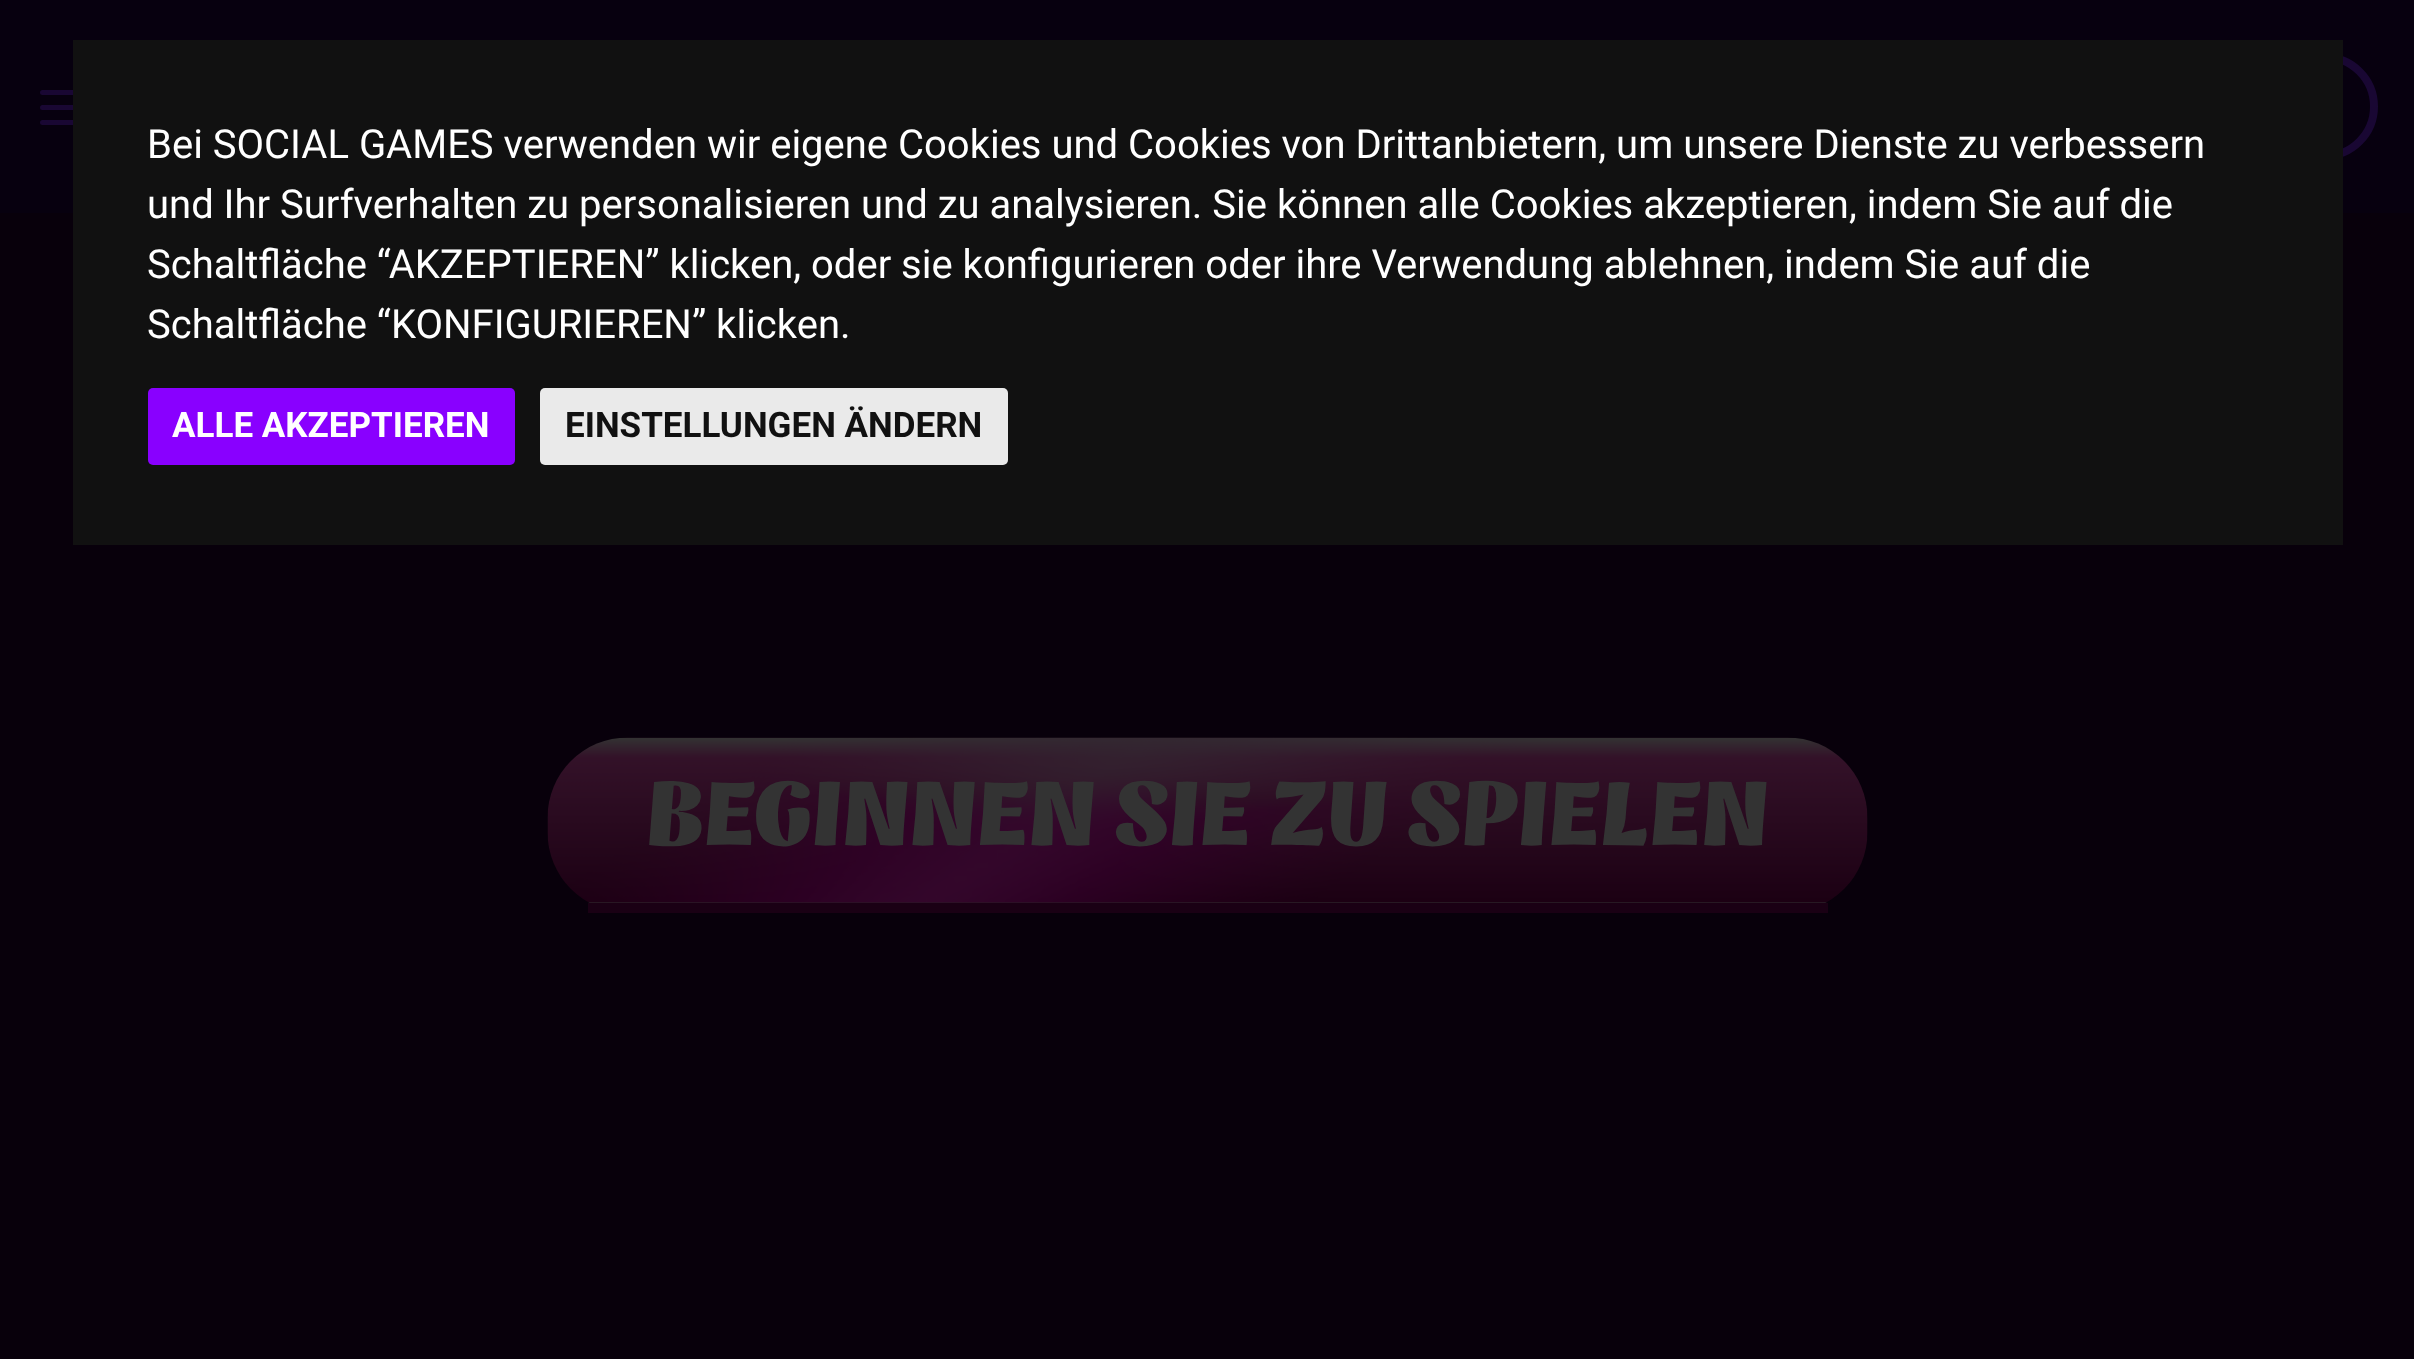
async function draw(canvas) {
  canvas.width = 2414;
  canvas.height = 1359;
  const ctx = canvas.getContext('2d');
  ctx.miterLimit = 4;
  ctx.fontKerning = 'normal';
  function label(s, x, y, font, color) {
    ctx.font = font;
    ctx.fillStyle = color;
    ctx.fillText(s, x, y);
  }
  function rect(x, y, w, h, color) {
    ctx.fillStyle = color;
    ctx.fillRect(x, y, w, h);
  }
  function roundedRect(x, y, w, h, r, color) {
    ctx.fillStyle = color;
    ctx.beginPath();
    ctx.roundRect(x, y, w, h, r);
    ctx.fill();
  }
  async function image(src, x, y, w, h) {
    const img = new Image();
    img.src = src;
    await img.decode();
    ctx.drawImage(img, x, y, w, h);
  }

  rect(0, 0, 2414, 1359, '#08000b');
  rect(0, 0, 2414, 213, '#07000f');
  roundedRect(40, 90, 55, 5, 2.5, '#190733');
  roundedRect(40, 105, 55, 5, 2.5, '#190733');
  roundedRect(40, 120, 55, 5, 2.5, '#190733');
  ctx.beginPath();
  ctx.roundRect(2274, 57, 100, 99, 49.5);
  ctx.strokeStyle = '#190733';
  ctx.lineWidth = 8;
  ctx.stroke();
  rect(73, 40, 2270, 505, '#111');
  label('Bei SOCIAL GAMES verwenden wir eigene Cookies und Cookies von Drittanbietern, um unsere Dienste zu verbessern', 147, 158, '40px Roboto', '#fff');
  label('und Ihr Surfverhalten zu personalisieren und zu analysieren. Sie können alle Cookies akzeptieren, indem Sie auf die', 147, 218, '40px Roboto', '#fff');
  label('Schaltfläche “AKZEPTIEREN” klicken, oder sie konfigurieren oder ihre Verwendung ablehnen, indem Sie auf die', 147, 278, '40px Roboto', '#fff');
  label('Schaltfläche “KONFIGURIEREN” klicken.', 147, 338, '40px Roboto', '#fff');
  roundedRect(148, 388, 367, 77, 5, '#8900ff');
  label('ALLE AKZEPTIEREN', 172, 437, 'bold 35px Roboto', '#fff');
  roundedRect(540, 388, 468, 77, 5, '#eaeaea');
  label('EINSTELLUNGEN ÄNDERN', 565, 437, 'bold 35px Roboto', '#111');
  await image('assets/img1.png', 547, 737, 1321, 166);
  rect(588, 903, 1240, 10, '#1a0014');
  label('BEGINNEN SIE ZU SPIELEN', 646, 845, 'italic 800 92.5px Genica', '#333');
}

draw(document.querySelector('canvas'));
